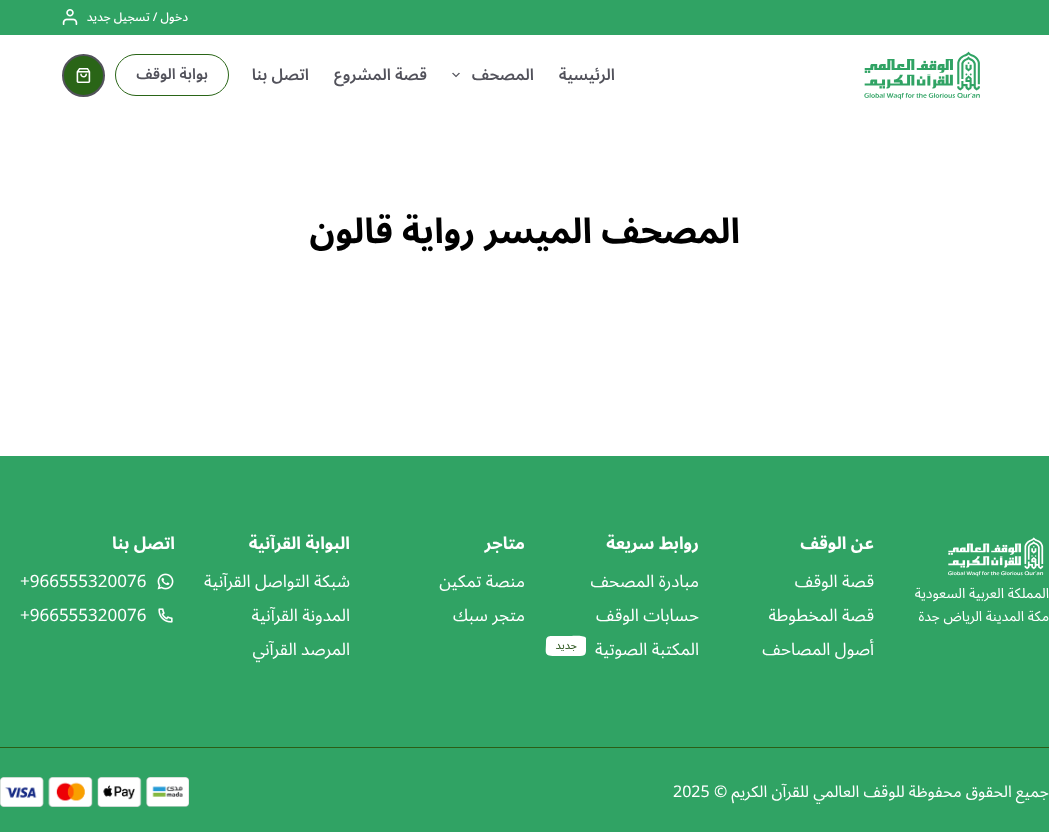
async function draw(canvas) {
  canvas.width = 1049;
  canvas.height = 832;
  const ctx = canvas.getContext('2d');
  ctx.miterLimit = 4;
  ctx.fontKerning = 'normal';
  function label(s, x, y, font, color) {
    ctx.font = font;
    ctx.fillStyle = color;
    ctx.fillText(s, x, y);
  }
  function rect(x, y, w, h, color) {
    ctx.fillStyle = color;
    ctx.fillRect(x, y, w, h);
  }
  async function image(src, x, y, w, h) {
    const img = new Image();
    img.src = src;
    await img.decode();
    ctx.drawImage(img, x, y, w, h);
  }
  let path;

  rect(0, 0, 1049, 832, '#fff');
  rect(0, 0, 1049, 35, '#30a364');
  ctx.direction = 'rtl';
  label('دخول / تسجيل جديد', 188, 21, '500 12px Noto Sans Arabic', '#fff');
  await image('assets/img1.png', 62, 9, 16, 16);
  await image('assets/img2.png', 864, 51, 116, 49);
  label('الرئيسية', 615, 80, '600 16px Noto Sans Arabic', '#52525b');
  label('المصحف', 534, 80, '600 16px Noto Sans Arabic', '#52525b');
  await image('assets/img3.png', 452, 72, 8, 6);
  label('قصة المشروع', 427, 80, '600 16px Noto Sans Arabic', '#52525b');
  label('اتصل بنا', 309, 80, '600 16px Noto Sans Arabic', '#52525b');
  ctx.beginPath();
  ctx.roundRect(115.5, 54.5, 113, 41, 20.5);
  ctx.strokeStyle = '#2a6517';
  ctx.stroke();
  label('بوابة الوقف', 208, 79, '600 15px Noto Sans Arabic', '#52525b');
  ctx.fillStyle = '#2a6517';
  ctx.beginPath();
  ctx.arc(83.5, 75.5, 20.5, 0, 2 * Math.PI);
  ctx.fill();
  ctx.strokeStyle = '#52525b';
  ctx.lineWidth = 2;
  ctx.stroke();
  await image('assets/img4.png', 76, 68, 15, 15);
  label('المصحف الميسر رواية قالون', 740, 243, 'bold 35px Noto Sans Arabic', '#000');
  rect(0, 456, 1049, 376, '#30a364');
  await image('assets/img5.png', 948, 537, 96, 40);
  label('المملكة العربية السعودية', 1049, 598, '14px Noto Sans Arabic', '#fff');
  label('مكة المدينة الرياض جدة', 1049, 621, '14px Noto Sans Arabic', '#fff');
  label('عن الوقف', 874, 549, 'bold 17px Noto Sans Arabic', '#fff');
  label('قصة الوقف', 874, 587, '17px Noto Sans Arabic', '#fff');
  label('قصة المخطوطة', 874, 621, '17px Noto Sans Arabic', '#fff');
  label('أصول المصاحف', 874, 655, '17px Noto Sans Arabic', '#fff');
  label('روابط سريعة', 699, 549, 'bold 17px Noto Sans Arabic', '#fff');
  label('مبادرة المصحف', 699, 587, '17px Noto Sans Arabic', '#fff');
  label('حسابات الوقف', 699, 621, '17px Noto Sans Arabic', '#fff');
  label('المكتبة الصوتية', 699, 655, '17px Noto Sans Arabic', '#fff');
  path = new Path2D('M552 636H571C573 636 584 635 586 638V646C586 652 587 656 580 656H557C543 656 546 654 546 641C546 637 548 636 552 636Z');
  ctx.fill(path);
  label('جديد', 577, 649, '11px Noto Sans Arabic', '#265017');
  label('متاجر', 525, 549, 'bold 17px Noto Sans Arabic', '#fff');
  label('منصة تمكين', 525, 587, '17px Noto Sans Arabic', '#fff');
  label('متجر سبك', 525, 621, '17px Noto Sans Arabic', '#fff');
  label('البوابة القرآنية', 350, 549, 'bold 17px Noto Sans Arabic', '#fff');
  label('شبكة التواصل القرآنية', 350, 587, '17px Noto Sans Arabic', '#fff');
  label('المدونة القرآنية', 350, 621, '17px Noto Sans Arabic', '#fff');
  label('المرصد القرآني', 350, 655, '17px Noto Sans Arabic', '#fff');
  label('اتصل بنا', 175, 549, 'bold 17px Noto Sans Arabic', '#fff');
  await image('assets/img6.png', 157, 573, 17, 17);
  ctx.direction = 'ltr';
  label('+966555320076', 20, 587, '17px Noto Sans Arabic', '#fff');
  await image('assets/img7.png', 158, 608, 15, 15);
  label('+966555320076', 20, 621, '17px Noto Sans Arabic', '#fff');
  rect(0, 747, 1049, 1, '#2b5e16');
  ctx.direction = 'rtl';
  label('جميع الحقوق محفوظة للوقف العالمي للقرآن الكريم ©', 1049, 797, '16px Noto Sans Arabic', '#fff');
  ctx.direction = 'ltr';
  label('2025', 673, 797, '16px Noto Sans Arabic', '#fff');
  await image('assets/img8.png', 0, 777, 189, 30);
}

draw(document.querySelector('canvas'));
